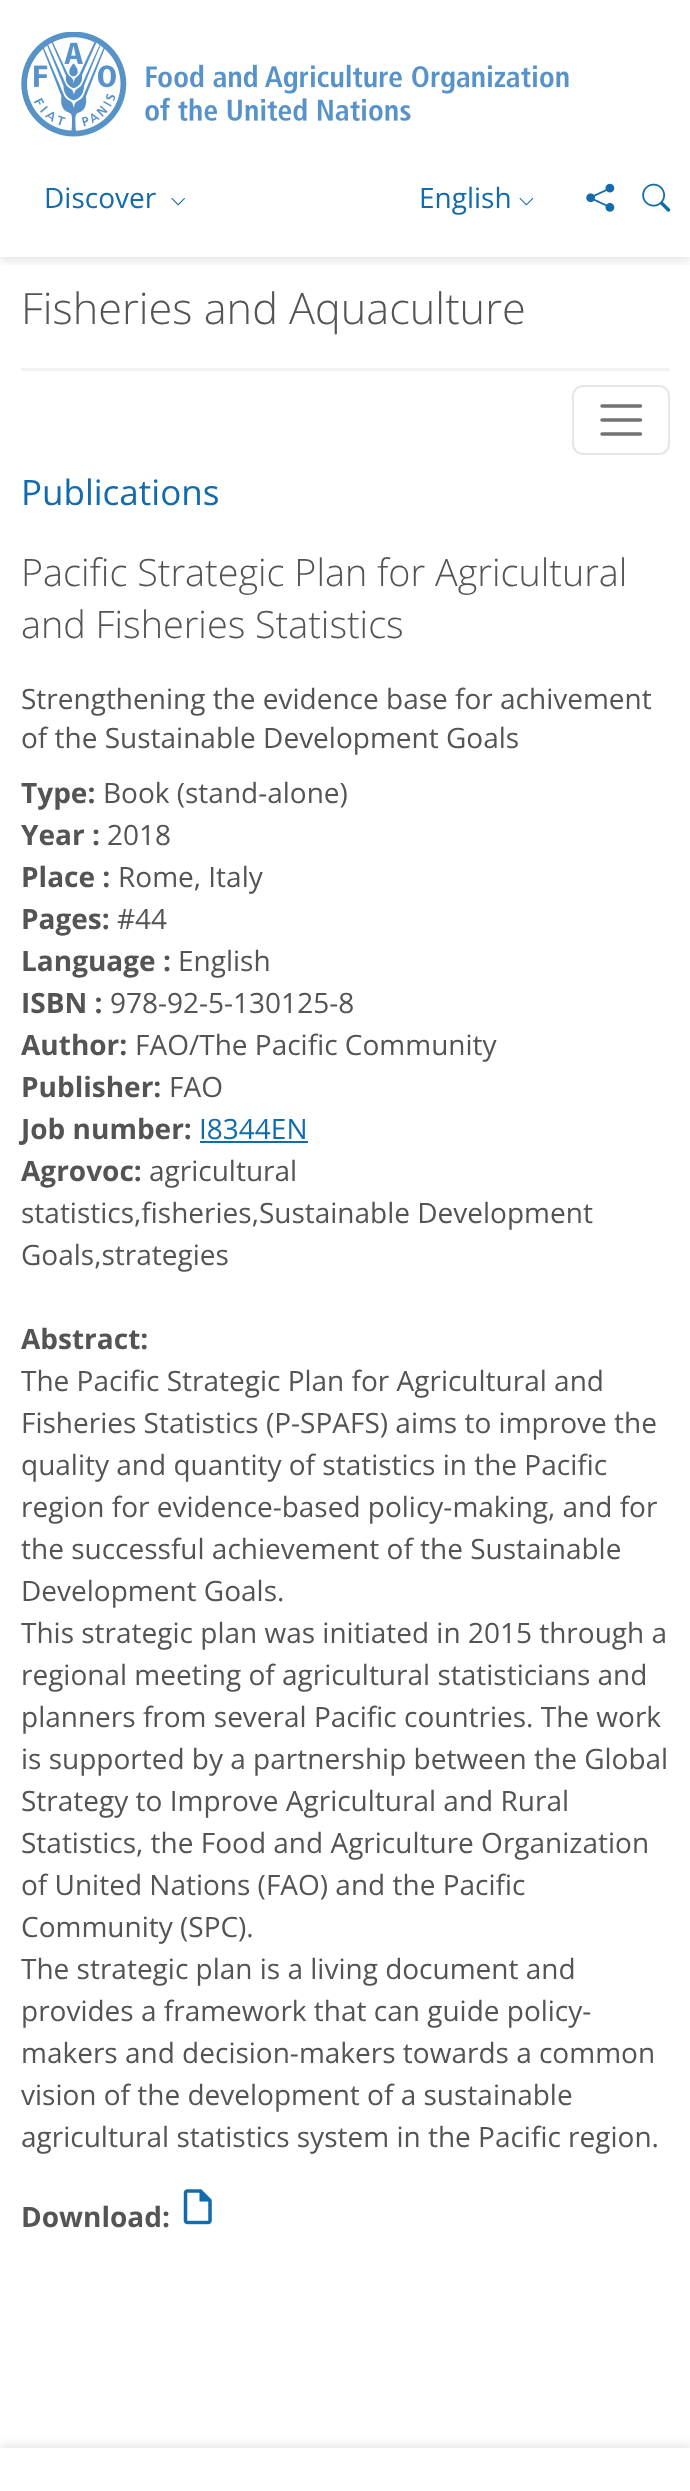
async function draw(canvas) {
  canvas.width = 690;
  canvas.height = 2491;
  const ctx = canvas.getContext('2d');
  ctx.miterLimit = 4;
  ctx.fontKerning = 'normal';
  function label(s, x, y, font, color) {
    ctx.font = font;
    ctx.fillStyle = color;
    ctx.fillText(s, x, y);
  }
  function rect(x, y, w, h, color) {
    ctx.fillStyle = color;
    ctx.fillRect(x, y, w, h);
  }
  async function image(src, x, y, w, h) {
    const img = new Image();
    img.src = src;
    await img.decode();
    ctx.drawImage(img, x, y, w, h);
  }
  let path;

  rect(0, 0, 690, 2491, '#fff');
  ctx.save();
  ctx.beginPath();
  ctx.rect(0, 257, 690, 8);
  ctx.clip();
  ctx.fillStyle = '#0000001a';
  ctx.filter = 'blur(5px)';
  ctx.beginPath();
  ctx.rect(0, 9, 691, 252);
  ctx.fill();
  ctx.filter = 'none';
  ctx.restore();
  await image('assets/img1.png', 21, 32, 548, 105);
  label('Discover', 44, 208, '28px Open Sans', '#116bac');
  await image('assets/img2.png', 171, 198, 14, 8);
  label('English', 419, 208, '28px Open Sans', '#116bac');
  await image('assets/img3.png', 519, 198, 15, 8);
  await image('assets/img4.png', 586, 183, 29, 29);
  await image('assets/img5.png', 642, 183, 29, 29);
  rect(21, 368, 649, 3, '#f2f2f2');
  label('Fisheries and Aquaculture', 21, 324, '300 43.25px Open Sans', '#545454');
  ctx.beginPath();
  ctx.roundRect(573, 386, 96, 68, 10);
  ctx.strokeStyle = '#e6e6e6';
  ctx.lineWidth = 2;
  ctx.stroke();
  path = new Path2D('M602 406H640.5M602 420H640.5M602 434H640.5');
  ctx.strokeStyle = '#737373';
  ctx.lineWidth = 3.5;
  ctx.lineCap = 'round';
  ctx.stroke(path);
  label('Publications', 21, 505, '35px Open Sans', '#116bac');
  label('Pacific Strategic Plan for Agricultural', 21, 586, '300 37.75px Open Sans', '#545454');
  label('and Fisheries Statistics', 21, 638, '300 37.75px Open Sans', '#545454');
  label('Strengthening the evidence base for achivement', 21, 709, '28px Open Sans', '#545454');
  label('of the Sustainable Development Goals', 21, 748, '28px Open Sans', '#545454');
  label('Type:', 21, 803, 'bold 28px Open Sans', '#545454');
  label('Book (stand-alone)', 103, 803, '28px Open Sans', '#545454');
  label('Year :', 21, 845, 'bold 28px Open Sans', '#545454');
  label('2018', 107, 845, '28px Open Sans', '#545454');
  label('Place :', 21, 887, 'bold 28px Open Sans', '#545454');
  label('Rome, Italy', 118, 887, '28px Open Sans', '#545454');
  label('Pages:', 21, 929, 'bold 28px Open Sans', '#545454');
  label('#44', 117, 929, '28px Open Sans', '#545454');
  label('Language :', 21, 971, 'bold 28px Open Sans', '#545454');
  label('English', 178, 971, '28px Open Sans', '#545454');
  label('ISBN :', 21, 1013, 'bold 28px Open Sans', '#545454');
  label('978-92-5-130125-8', 110, 1013, '28px Open Sans', '#545454');
  label('Author:', 21, 1055, 'bold 28px Open Sans', '#545454');
  label('FAO/The Pacific Community', 135, 1055, '28px Open Sans', '#545454');
  label('Publisher:', 21, 1097, 'bold 28px Open Sans', '#545454');
  label('FAO', 169, 1097, '28px Open Sans', '#545454');
  label('Job number:', 21, 1139, 'bold 28px Open Sans', '#545454');
  label('I8344EN', 199, 1139, '28px Open Sans', '#116bac');
  rect(200, 1141, 108, 2, '#116bac');
  label('Agrovoc:', 21, 1181, 'bold 28px Open Sans', '#545454');
  label('agricultural', 149, 1181, '28px Open Sans', '#545454');
  label('statistics,fisheries,Sustainable Development', 21, 1223, '28px Open Sans', '#545454');
  label('Goals,strategies', 21, 1265, '28px Open Sans', '#545454');
  label('Abstract:', 21, 1349, 'bold 28px Open Sans', '#545454');
  label('The Pacific Strategic Plan for Agricultural and', 21, 1391, '28px Open Sans', '#545454');
  label('Fisheries Statistics (P-SPAFS) aims to improve the', 21, 1433, '28px Open Sans', '#545454');
  label('quality and quantity of statistics in the Pacific', 21, 1475, '28px Open Sans', '#545454');
  label('region for evidence-based policy-making, and for', 21, 1517, '28px Open Sans', '#545454');
  label('the successful achievement of the Sustainable', 21, 1559, '28px Open Sans', '#545454');
  label('Development Goals.', 21, 1601, '28px Open Sans', '#545454');
  label('This strategic plan was initiated in 2015 through a', 21, 1643, '28px Open Sans', '#545454');
  label('regional meeting of agricultural statisticians and', 21, 1685, '28px Open Sans', '#545454');
  label('planners from several Pacific countries. The work', 21, 1727, '28px Open Sans', '#545454');
  label('is supported by a partnership between the Global', 21, 1769, '28px Open Sans', '#545454');
  label('Strategy to Improve Agricultural and Rural', 21, 1811, '28px Open Sans', '#545454');
  label('Statistics, the Food and Agriculture Organization', 21, 1853, '28px Open Sans', '#545454');
  label('of United Nations (FAO) and the Pacific', 21, 1895, '28px Open Sans', '#545454');
  label('Community (SPC).', 21, 1937, '28px Open Sans', '#545454');
  label('The strategic plan is a living document and', 21, 1979, '28px Open Sans', '#545454');
  label('provides a framework that can guide policy-', 21, 2021, '28px Open Sans', '#545454');
  label('makers and decision-makers towards a common', 21, 2063, '28px Open Sans', '#545454');
  label('vision of the development of a sustainable', 21, 2105, '28px Open Sans', '#545454');
  label('agricultural statistics system in the Pacific region.', 21, 2147, '28px Open Sans', '#545454');
  label('Download:', 21, 2227, 'bold 28px Open Sans', '#545454');
  await image('assets/img6.png', 183, 2189, 29, 36);
  ctx.fillStyle = '#0000001a';
  ctx.filter = 'blur(5px)';
  ctx.beginPath();
  ctx.rect(0, 2445, 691, 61);
  ctx.fill();
  ctx.filter = 'none';
  rect(0, 2448, 690, 43, '#fff');
}

draw(document.querySelector('canvas'));
